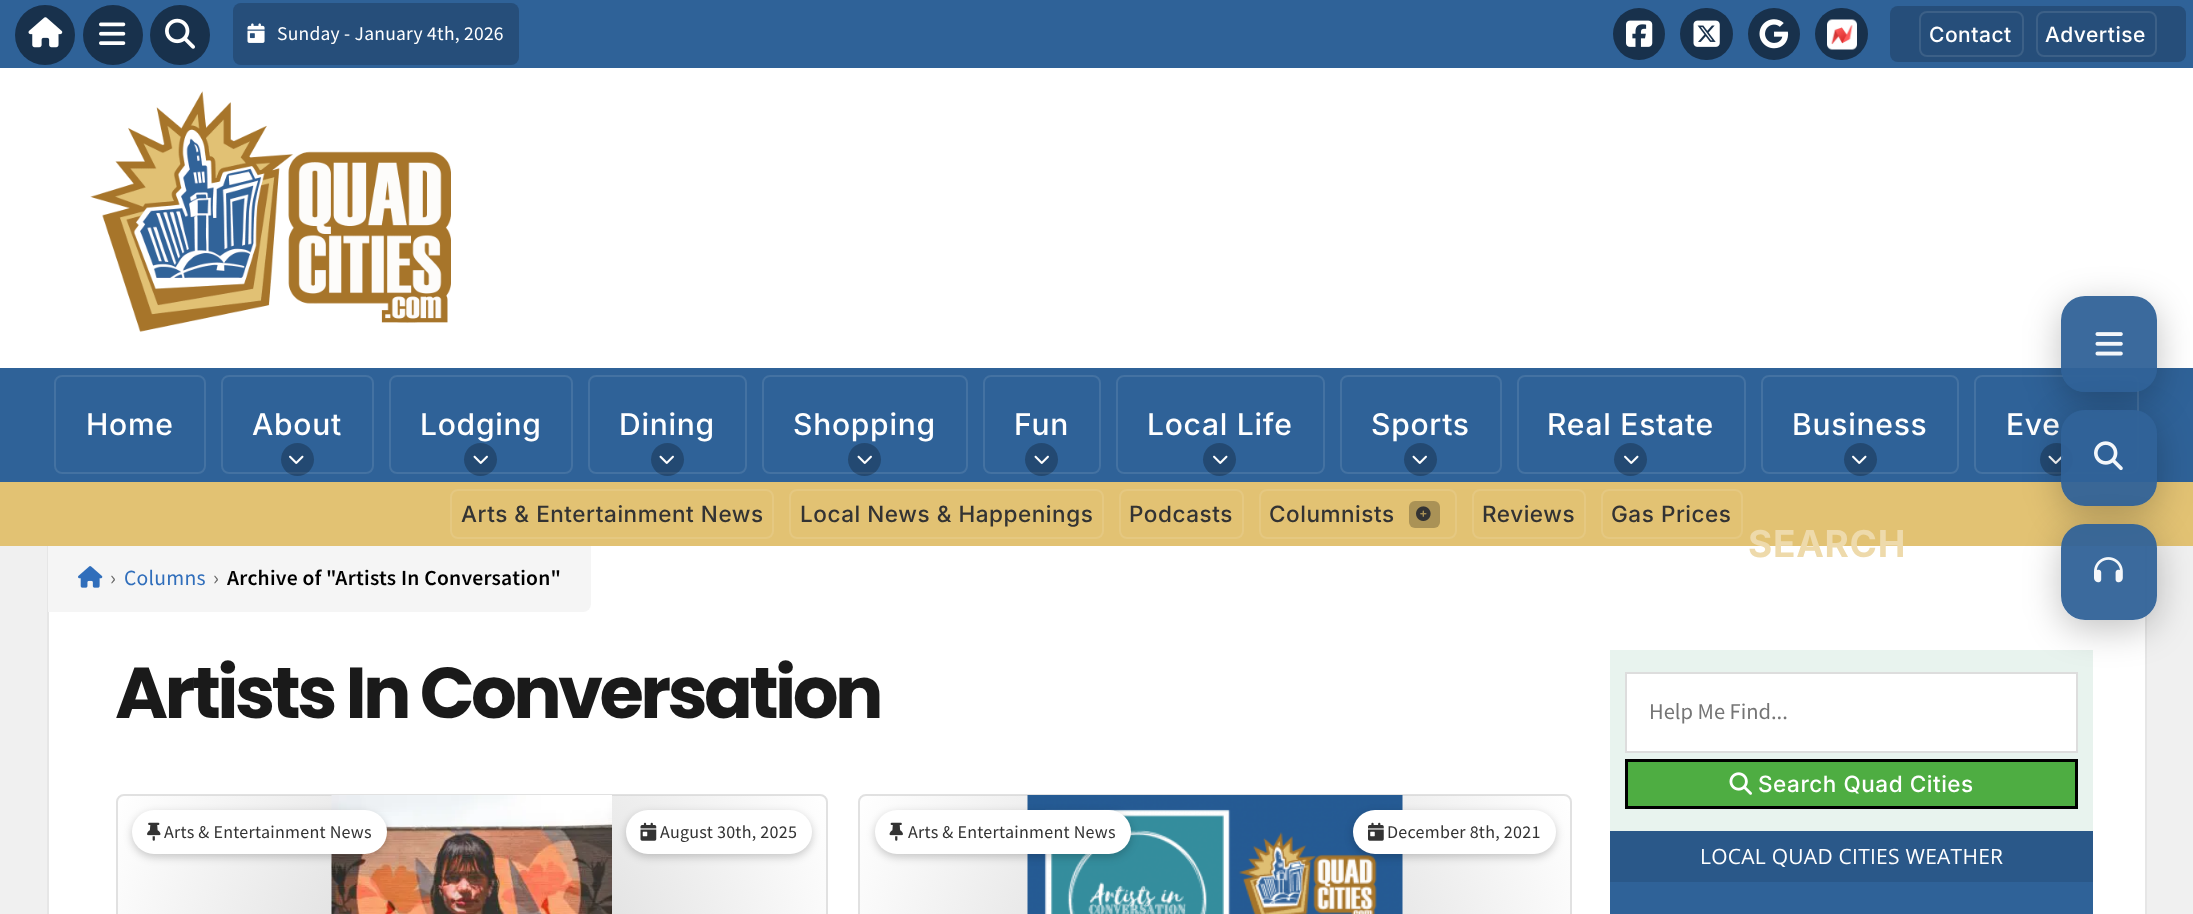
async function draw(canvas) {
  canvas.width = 2193;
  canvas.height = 914;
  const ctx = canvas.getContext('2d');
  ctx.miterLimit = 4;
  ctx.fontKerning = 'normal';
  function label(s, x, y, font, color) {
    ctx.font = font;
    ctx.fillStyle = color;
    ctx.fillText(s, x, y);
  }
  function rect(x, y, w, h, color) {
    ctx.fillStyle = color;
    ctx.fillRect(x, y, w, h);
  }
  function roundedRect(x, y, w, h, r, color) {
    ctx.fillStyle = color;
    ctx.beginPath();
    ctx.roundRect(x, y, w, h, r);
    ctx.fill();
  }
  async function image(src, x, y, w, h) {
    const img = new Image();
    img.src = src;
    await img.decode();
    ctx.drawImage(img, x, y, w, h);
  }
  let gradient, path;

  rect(0, 0, 2193, 914, '#f0f0f0');
  rect(0, 0, 2193, 68, '#2f6298');
  ctx.fillStyle = '#18314c';
  ctx.beginPath();
  ctx.arc(45, 35, 30, 0, 2 * Math.PI);
  ctx.fill();
  await image('assets/img1.png', 28, 17, 35, 31);
  ctx.beginPath();
  ctx.arc(113, 35, 30, 0, 2 * Math.PI);
  ctx.fill();
  await image('assets/img2.png', 99, 22, 27, 23);
  ctx.beginPath();
  ctx.arc(180, 35, 30, 0, 2 * Math.PI);
  ctx.fill();
  await image('assets/img3.png', 165, 18, 30, 31);
  roundedRect(233, 3, 286, 62, 8, '#264e7a');
  await image('assets/img4.png', 247, 23, 18, 20);
  ctx.letterSpacing = '0.25px';
  label('Sunday - January 4th, 2026', 277, 40, '19.5px Source Sans Pro', '#fff');
  ctx.fillStyle = '#18314c';
  ctx.beginPath();
  ctx.arc(1639, 34, 26, 0, 2 * Math.PI);
  ctx.fill();
  await image('assets/img5.png', 1626, 20, 27, 27);
  roundedRect(1680, 8, 53, 52, 26, '#18314c');
  await image('assets/img6.png', 1693, 20, 27, 27);
  ctx.beginPath();
  ctx.arc(1774, 34, 26, 0, 2 * Math.PI);
  ctx.fill();
  await image('assets/img7.png', 1759, 19, 30, 30);
  roundedRect(1815, 8, 53, 52, 26, '#18314c');
  await image('assets/img8.png', 1827, 19, 30, 31);
  roundedRect(1890, 6, 296, 56, 8, '#264e7a');
  ctx.beginPath();
  ctx.roundRect(1920, 12, 103, 44, 7);
  ctx.strokeStyle = '#3c6087';
  ctx.lineWidth = 2;
  ctx.stroke();
  ctx.letterSpacing = '0.5px';
  label('Contact', 1929, 42, '500 21px Inter', '#fff');
  ctx.beginPath();
  ctx.roundRect(2037, 12, 119, 44, 7);
  ctx.stroke();
  label('Advertise', 2045, 42, '500 21px Inter', '#fff');
  rect(0, 68, 2193, 300, '#fff');
  await image('assets/img9.png', 90, 91, 361, 241);
  rect(0, 368, 2193, 114, '#2f6298');
  ctx.beginPath();
  ctx.roundRect(55, 376, 150, 97, 7);
  ctx.strokeStyle = '#4472a2';
  ctx.stroke();
  ctx.letterSpacing = '0.75px';
  label('Home', 86, 435, '500 30px Inter', '#fff');
  ctx.beginPath();
  ctx.roundRect(222, 376, 151, 97, 7);
  ctx.stroke();
  label('About', 252, 435, '500 30px Inter', '#fff');
  ctx.fillStyle = '#00000040';
  ctx.beginPath();
  ctx.arc(297.5, 459.5, 16.5, 0, 2 * Math.PI);
  ctx.fill();
  await image('assets/img10.png', 289, 455, 15, 9);
  ctx.beginPath();
  ctx.roundRect(390, 376, 182, 97, 7);
  ctx.stroke();
  label('Lodging', 420, 435, '500 30px Inter', '#fff');
  ctx.fillStyle = '#00000040';
  ctx.beginPath();
  ctx.arc(480.5, 459.5, 16.5, 0, 2 * Math.PI);
  ctx.fill();
  await image('assets/img11.png', 473, 455, 15, 9);
  ctx.beginPath();
  ctx.roundRect(589, 376, 157, 97, 7);
  ctx.stroke();
  label('Dining', 619, 435, '500 30px Inter', '#fff');
  ctx.fillStyle = '#00000040';
  ctx.beginPath();
  ctx.arc(667.5, 459.5, 16.5, 0, 2 * Math.PI);
  ctx.fill();
  await image('assets/img11.png', 659, 455, 15, 9);
  ctx.beginPath();
  ctx.roundRect(763, 376, 204, 97, 7);
  ctx.stroke();
  label('Shopping', 793, 435, '500 30px Inter', '#fff');
  ctx.fillStyle = '#00000040';
  ctx.beginPath();
  ctx.arc(864.5, 459.5, 16.5, 0, 2 * Math.PI);
  ctx.fill();
  await image('assets/img11.png', 857, 455, 15, 9);
  ctx.beginPath();
  ctx.roundRect(984, 376, 116, 97, 7);
  ctx.stroke();
  label('Fun', 1014, 435, '500 30px Inter', '#fff');
  ctx.fillStyle = '#00000040';
  ctx.beginPath();
  ctx.arc(1041.5, 459.5, 16.5, 0, 2 * Math.PI);
  ctx.fill();
  await image('assets/img11.png', 1034, 455, 15, 9);
  ctx.beginPath();
  ctx.roundRect(1117, 376, 207, 97, 7);
  ctx.stroke();
  label('Local Life', 1147, 435, '500 30px Inter', '#fff');
  ctx.fillStyle = '#00000040';
  ctx.beginPath();
  ctx.arc(1219.5, 459.5, 16.5, 0, 2 * Math.PI);
  ctx.fill();
  await image('assets/img10.png', 1213, 455, 15, 9);
  ctx.beginPath();
  ctx.roundRect(1341, 376, 160, 97, 7);
  ctx.stroke();
  label('Sports', 1371, 435, '500 30px Inter', '#fff');
  ctx.fillStyle = '#00000040';
  ctx.beginPath();
  ctx.arc(1420.5, 459.5, 16.5, 0, 2 * Math.PI);
  ctx.fill();
  await image('assets/img11.png', 1412, 455, 15, 9);
  ctx.beginPath();
  ctx.roundRect(1518, 376, 227, 97, 7);
  ctx.stroke();
  label('Real Estate', 1547, 435, '500 30px Inter', '#fff');
  ctx.fillStyle = '#00000040';
  ctx.beginPath();
  ctx.arc(1630.5, 459.5, 16.5, 0, 2 * Math.PI);
  ctx.fill();
  await image('assets/img10.png', 1624, 455, 15, 9);
  ctx.beginPath();
  ctx.roundRect(1762, 376, 196, 97, 7);
  ctx.stroke();
  label('Business', 1792, 435, '500 30px Inter', '#fff');
  ctx.fillStyle = '#00000040';
  ctx.beginPath();
  ctx.arc(1860.5, 459.5, 16.5, 0, 2 * Math.PI);
  ctx.fill();
  await image('assets/img10.png', 1852, 455, 15, 9);
  ctx.beginPath();
  ctx.roundRect(1975, 376, 163, 97, 7);
  ctx.stroke();
  label('Eve', 2006, 435, '500 30px Inter', '#fff');
  ctx.fillStyle = '#00000040';
  ctx.beginPath();
  ctx.arc(2056.5, 459.5, 16.5, 0, 2 * Math.PI);
  ctx.fill();
  await image('assets/img11.png', 2048, 455, 15, 9);
  rect(0, 482, 2193, 64, '#e2c273');
  ctx.beginPath();
  ctx.roundRect(451, 490, 322, 48, 7);
  ctx.strokeStyle = '#e5c881';
  ctx.stroke();
  ctx.letterSpacing = '0.55px';
  label('Arts & Entertainment News', 461, 522, '500 22.5px Inter', '#333');
  ctx.beginPath();
  ctx.roundRect(790, 490, 313, 48, 7);
  ctx.stroke();
  label('Local News & Happenings', 800, 522, '500 22.5px Inter', '#333');
  ctx.beginPath();
  ctx.roundRect(1120, 490, 123, 48, 7);
  ctx.stroke();
  label('Podcasts', 1129, 522, '500 22.5px Inter', '#333');
  ctx.beginPath();
  ctx.roundRect(1260, 490, 196, 48, 7);
  ctx.stroke();
  label('Columnists', 1269, 522, '500 22.5px Inter', '#333');
  roundedRect(1409, 501, 31, 27, 6, '#aa9256');
  await image('assets/img12.png', 1416, 506, 15, 15);
  ctx.beginPath();
  ctx.roundRect(1473, 490, 112, 48, 7);
  ctx.stroke();
  label('Reviews', 1482, 522, '500 22.5px Inter', '#333');
  ctx.beginPath();
  ctx.roundRect(1602, 490, 140, 48, 7);
  ctx.stroke();
  label('Gas Prices', 1611, 522, '500 22.5px Inter', '#333');
  ctx.save();
  path = new Path2D('M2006 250H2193V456H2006ZM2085 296H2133C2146.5 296 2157 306.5 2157 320V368C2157 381.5 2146.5 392 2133 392H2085C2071.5 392 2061 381.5 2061 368V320C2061 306.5 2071.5 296 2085 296Z');
  ctx.clip(path, 'evenodd');
  ctx.fillStyle = '#0000003d';
  ctx.filter = 'blur(18px)';
  ctx.beginPath();
  ctx.roundRect(2061, 305, 96, 96, 24);
  ctx.fill();
  ctx.filter = 'none';
  ctx.restore();
  roundedRect(2061, 296, 96, 96, 24, '#306298f2');
  await image('assets/img13.png', 2095, 332, 28, 24);
  rect(49, 546, 2096, 368, '#fff');
  ctx.letterSpacing = '0.75px';
  label('SEARCH', 1748, 557, 'bold 37px Inter', '#eedaab');
  rect(2145, 546, 2, 368, '#e6e6e6');
  ctx.save();
  path = new Path2D('M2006 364H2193V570H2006ZM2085 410H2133C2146.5 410 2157 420.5 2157 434V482C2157 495.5 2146.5 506 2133 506H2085C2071.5 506 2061 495.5 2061 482V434C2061 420.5 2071.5 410 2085 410Z');
  ctx.clip(path, 'evenodd');
  ctx.fillStyle = '#0000003d';
  ctx.filter = 'blur(18px)';
  ctx.beginPath();
  ctx.roundRect(2061, 419, 96, 96, 24);
  ctx.fill();
  ctx.filter = 'none';
  ctx.restore();
  roundedRect(2061, 410, 96, 96, 24, '#306298f2');
  await image('assets/img14.png', 2094, 441, 29, 30);
  rect(1610, 650, 483, 181, '#e8f3ee');
  ctx.fillStyle = '#fff';
  ctx.beginPath();
  ctx.rect(1626, 673, 451, 79);
  ctx.fill();
  ctx.strokeStyle = '#ddd';
  ctx.stroke();
  ctx.save();
  path = new Path2D('M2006 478H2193V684H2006ZM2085 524H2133C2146.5 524 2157 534.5 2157 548V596C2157 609.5 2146.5 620 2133 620H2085C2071.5 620 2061 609.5 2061 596V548C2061 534.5 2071.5 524 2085 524Z');
  ctx.clip(path, 'evenodd');
  ctx.fillStyle = '#0000003d';
  ctx.filter = 'blur(18px)';
  ctx.beginPath();
  ctx.roundRect(2061, 533, 96, 96, 24);
  ctx.fill();
  ctx.filter = 'none';
  ctx.restore();
  roundedRect(2061, 524, 96, 96, 24, '#306298f2');
  await image('assets/img15.png', 2094, 557, 29, 26);
  rect(47, 546, 2, 368, '#e6e6e6');
  ctx.fillStyle = '#f5f5f5';
  ctx.beginPath();
  ctx.roundRect(48, 546, 543, 66, [0, 0, 8, 0]);
  ctx.fill();
  await image('assets/img16.png', 78, 566, 25, 22);
  ctx.letterSpacing = '0.25px';
  label('›', 110, 585, '21.6px Source Sans Pro', '#666');
  label('Columns', 124, 585, '21.6px Source Sans Pro', '#306ebb');
  label('›', 213, 585, '21.6px Source Sans Pro', '#666');
  label('Archive of "Artists In Conversation"', 227, 585, '600 21.6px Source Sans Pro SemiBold', '#000');
  ctx.letterSpacing = '-3.6px';
  label('Artists In Conversation', 115, 718, 'bold 72px Poppins', '#1a1a1a');
  ctx.beginPath();
  ctx.roundRect(117, 795, 710, 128, 7);
  ctx.strokeStyle = '#e1e1e1';
  ctx.stroke();
  gradient = ctx.createRadialGradient(472, 983, 0, 472, 983, 401);
  gradient.addColorStop(0, '#d3d3d3');
  gradient.addColorStop(1, '#d3d3d300');
  ctx.fillStyle = gradient;
  ctx.fillRect(118, 795, 708, 119);
  await image('assets/img17.png', 331, 795, 281, 119);
  ctx.fillStyle = '#00000033';
  ctx.filter = 'blur(4px)';
  ctx.beginPath();
  ctx.roundRect(132, 813, 255, 44, 22);
  ctx.fill();
  ctx.filter = 'none';
  roundedRect(132, 810, 255, 44, 22, '#fff');
  await image('assets/img18.png', 147, 822, 14, 19);
  ctx.letterSpacing = '0.25px';
  label('Arts & Entertainment News', 164, 838, '18px Source Sans Pro', '#333');
  ctx.fillStyle = '#00000033';
  ctx.filter = 'blur(4px)';
  ctx.beginPath();
  ctx.roundRect(626, 813, 186, 44, 22);
  ctx.fill();
  ctx.filter = 'none';
  roundedRect(626, 810, 186, 44, 22, '#fff');
  await image('assets/img19.png', 640, 822, 17, 19);
  label('August 30th, 2025', 660, 838, '18px Source Sans Pro', '#333');
  ctx.beginPath();
  ctx.roundRect(859, 795, 712, 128, 7);
  ctx.stroke();
  gradient = ctx.createRadialGradient(1215, 983, 0, 1215, 983, 402);
  gradient.addColorStop(0, '#d3d3d3');
  gradient.addColorStop(1, '#d3d3d300');
  ctx.fillStyle = gradient;
  ctx.fillRect(860, 795, 710, 119);
  await image('assets/img20.png', 1027, 795, 376, 119);
  ctx.fillStyle = '#00000033';
  ctx.filter = 'blur(4px)';
  ctx.beginPath();
  ctx.roundRect(875, 813, 256, 44, 22);
  ctx.fill();
  ctx.filter = 'none';
  roundedRect(875, 810, 256, 44, 22, '#fff');
  await image('assets/img21.png', 889, 822, 14, 19);
  label('Arts & Entertainment News', 908, 838, '18px Source Sans Pro', '#333');
  ctx.fillStyle = '#00000033';
  ctx.filter = 'blur(4px)';
  ctx.beginPath();
  ctx.roundRect(1353, 813, 203, 44, 22);
  ctx.fill();
  ctx.filter = 'none';
  roundedRect(1353, 810, 203, 44, 22, '#fff');
  await image('assets/img22.png', 1368, 822, 16, 19);
  label('December 8th, 2021', 1387, 838, '18px Source Sans Pro', '#333');
  ctx.letterSpacing = '0px';
  label('Help Me Find...', 1649, 719, '22.5px Source Sans Pro', '#757575');
  ctx.fillStyle = '#4ead42';
  ctx.beginPath();
  ctx.rect(1626.5, 760.5, 450, 47);
  ctx.fill();
  ctx.strokeStyle = '#000';
  ctx.lineWidth = 3;
  ctx.stroke();
  await image('assets/img23.png', 1729, 772, 23, 23);
  ctx.letterSpacing = '0.55px';
  label('Search Quad Cities', 1758, 792, '500 22.5px Inter', '#fff');
  rect(1610, 882, 483, 32, '#2f6298');
  rect(1610, 831, 483, 51, '#2a5889');
  ctx.save();
  ctx.beginPath();
  ctx.rect(1625, 846, 453, 21);
  ctx.clip();
  ctx.letterSpacing = '0.25px';
  label('LOCAL QUAD CITIES WEATHER', 1700, 864, '21px Open Sans', '#fff');
  ctx.restore();
}

draw(document.querySelector('canvas'));
